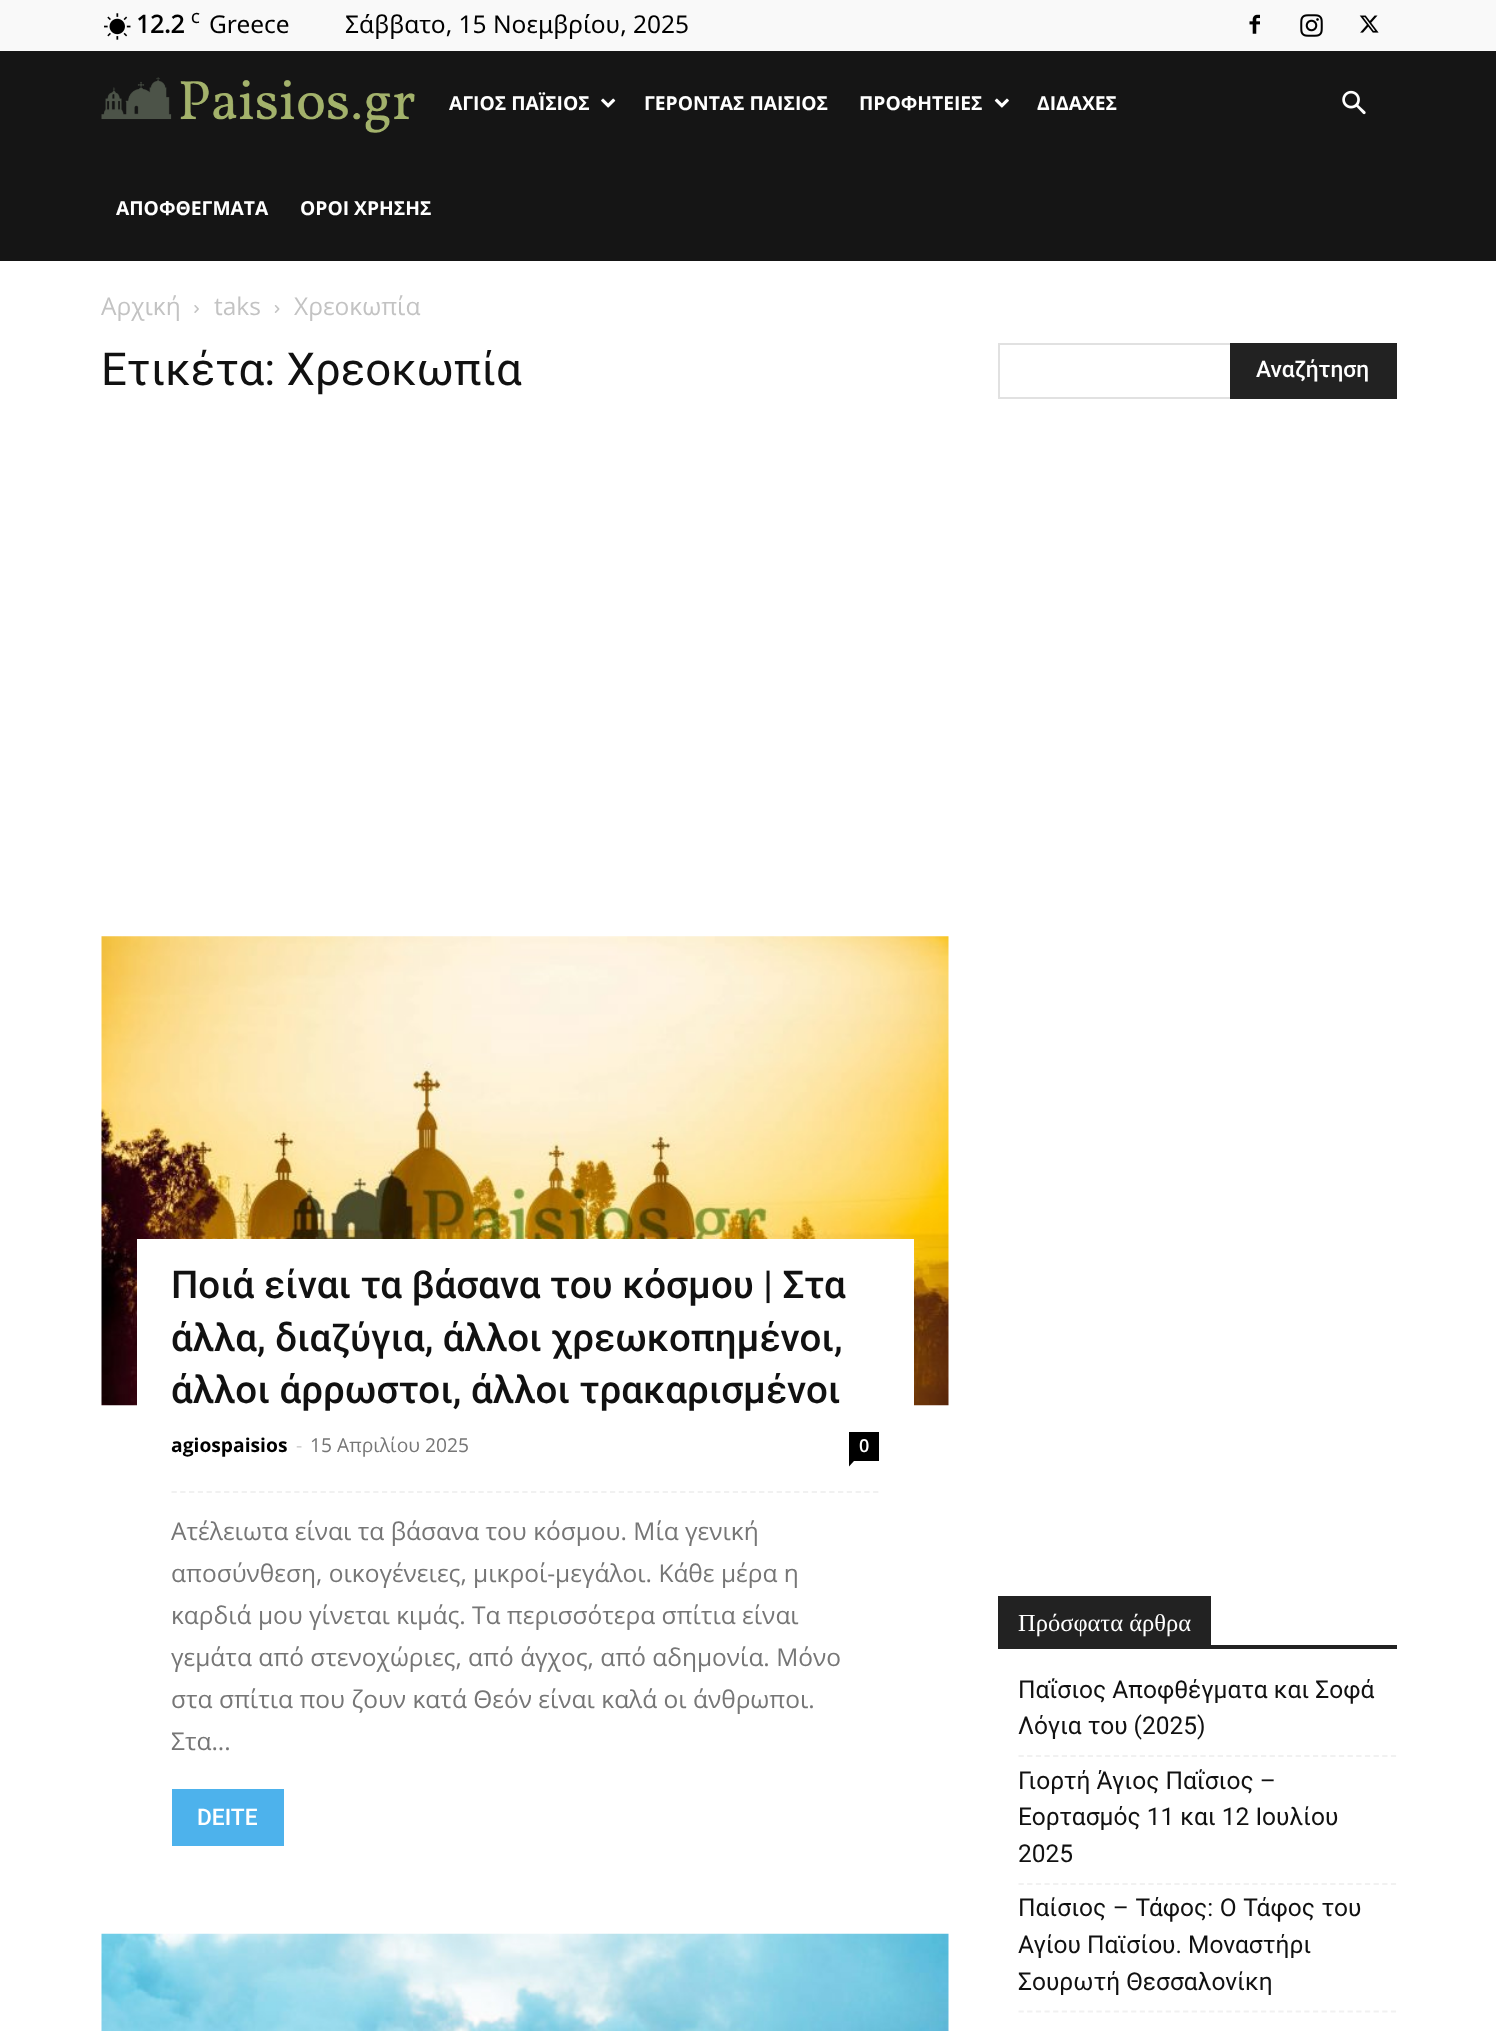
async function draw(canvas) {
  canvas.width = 1496;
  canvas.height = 2031;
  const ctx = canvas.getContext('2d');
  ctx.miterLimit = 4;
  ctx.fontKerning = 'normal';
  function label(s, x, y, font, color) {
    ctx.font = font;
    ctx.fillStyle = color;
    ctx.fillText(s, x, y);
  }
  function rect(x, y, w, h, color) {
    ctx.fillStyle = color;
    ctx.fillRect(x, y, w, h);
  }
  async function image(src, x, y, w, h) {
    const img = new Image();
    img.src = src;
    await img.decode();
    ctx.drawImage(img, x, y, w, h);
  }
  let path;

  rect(0, 0, 1496, 2031, '#fff');
  rect(0, 0, 1496, 51, '#f9f9f9');
  await image('assets/img1.png', 104, 13, 27, 27);
  label('12.2', 136, 33, 'bold 24.5px Noto Sans', '#000');
  label('C', 191, 23, '600 14px Open Sans', '#000');
  label('Greece', 209, 33, '24.5px Noto Sans', '#000');
  label('Σάββατο, 15 Νοεμβρίου, 2025', 345, 33, '24.5px Noto Sans', '#000');
  await image('assets/img2.png', 1249, 14, 11, 20);
  await image('assets/img3.png', 1300, 14, 23, 23);
  await image('assets/img4.png', 1359, 15, 20, 18);
  rect(0, 51, 1496, 210, '#151515');
  await image('assets/img5.png', 101, 77, 314, 56);
  label('ΑΓΙΟΣ ΠΑΪΣΙΟΣ', 449, 110, 'bold 19.25px Open Sans', '#fff');
  await image('assets/img6.png', 601, 98, 15, 10);
  label('ΓΕΡΟΝΤΑΣ ΠΑΙΣΙΟΣ', 644, 110, 'bold 19.25px Open Sans', '#fff');
  label('ΠΡΟΦΗΤΕΙΕΣ', 859, 110, 'bold 19.25px Open Sans', '#fff');
  await image('assets/img7.png', 994, 98, 15, 10);
  label('ΔΙΔΑΧΕΣ', 1037, 110, 'bold 19.25px Open Sans', '#fff');
  label('ΑΠΟΦΘΕΓΜΑΤΑ', 116, 215, 'bold 19.25px Open Sans', '#fff');
  label('ΟΡΟΙ ΧΡΗΣΗΣ', 300, 215, 'bold 19.25px Open Sans', '#fff');
  await image('assets/img8.png', 1342, 90, 24, 25);
  label('Αρχική', 101, 315, '24.5px Open Sans', '#c3c3c3');
  await image('assets/img9.png', 194, 305, 5, 8);
  label('taks', 214, 315, '24.5px Open Sans', '#c3c3c3');
  await image('assets/img10.png', 274, 305, 6, 8);
  label('Χρεοκωπία', 294, 315, '24.5px Open Sans', '#c3c3c3');
  label('Ετικέτα: Χρεοκωπία', 101, 385, '45.5px Roboto', '#111');
  await image('assets/img11.png', 101, 936, 848, 470);
  rect(137, 1239, 777, 167, '#fff');
  label('Ποιά είναι τα βάσανα του κόσμου | Στα', 171, 1298, '500 38.5px Roboto', '#111');
  label('άλλα, διαζύγια, άλλοι χρεωκοπημένοι,', 171, 1351, '500 38.5px Roboto', '#111');
  label('άλλοι άρρωστοι, άλλοι τρακαρισμένοι', 171, 1403, '500 38.5px Roboto', '#111');
  path = new Path2D('M171.5 1492H878.5');
  ctx.strokeStyle = '#f1f1f1';
  ctx.lineWidth = 1.8;
  ctx.setLineDash([5.25, 3.52]);
  ctx.stroke(path);
  label('agiospaisios', 171, 1452, 'bold 19.25px Open Sans', '#000');
  label('-', 296, 1452, '19.25px Open Sans', '#ccc');
  label('15 Απριλίου 2025', 310, 1452, '19.25px Open Sans', '#767676');
  rect(849, 1432, 30, 29, '#000');
  label('0', 859, 1452, '600 18px Open Sans', '#fff');
  ctx.fillStyle = '#000';
  path = new Path2D('M849 1461H854L849 1466.5Z');
  ctx.fill(path);
  label('Ατέλειωτα είναι τα βάσανα του κόσμου. Μία γενική', 171, 1540, '24.5px Open Sans', '#767676');
  label('αποσύνθεση, οικογένειες, μικροί-μεγάλοι. Κάθε μέρα η', 171, 1582, '24.5px Open Sans', '#767676');
  label('καρδιά μου γίνεται κιμάς. Τα περισσότερα σπίτια είναι', 171, 1624, '24.5px Open Sans', '#767676');
  label('γεμάτα από στενοχώριες, από άγχος, από αδημονία. Μόνο', 171, 1666, '24.5px Open Sans', '#767676');
  label('στα σπίτια που ζουν κατά Θεόν είναι καλά οι άνθρωποι.', 171, 1708, '24.5px Open Sans', '#767676');
  label('Στα...', 171, 1750, '24.5px Open Sans', '#767676');
  rect(172, 1789, 112, 57, '#4db2ec');
  label('DEITE', 197, 1825, '500 22.75px Roboto', '#fff');
  await image('assets/img12.png', 101, 1933, 848, 98);
  rect(998, 343, 232, 2, '#e1e1e1');
  rect(998, 397, 232, 2, '#e1e1e1');
  rect(998, 343, 2, 56, '#e1e1e1');
  rect(1230, 343, 167, 56, '#222');
  label('Αναζήτηση', 1256, 377, '500 22.75px Roboto', '#fff');
  rect(998, 1645, 399, 4, '#222');
  rect(998, 1596, 213, 49, '#222');
  label('Πρόσφατα άρθρα', 1018, 1631, '24.5px Tinos', '#fff');
  path = new Path2D('M1018.5 1756H1396.5');
  ctx.setLineDash([5.25, 3.41]);
  ctx.stroke(path);
  label('Παΐσιος Αποφθέγματα και Σοφά', 1018, 1698, '24.5px Roboto', '#111');
  label('Λόγια του (2025)', 1018, 1734, '24.5px Roboto', '#111');
  path = new Path2D('M1018.5 1884H1396.5');
  ctx.stroke(path);
  label('Γιορτή Άγιος Παΐσιος –', 1018, 1789, '24.5px Roboto', '#111');
  label('Εορτασμός 11 και 12 Ιουλίου', 1018, 1825, '24.5px Roboto', '#111');
  label('2025', 1018, 1862, '24.5px Roboto', '#111');
  path = new Path2D('M1018.5 2011.5H1396.5');
  ctx.stroke(path);
  ctx.wordSpacing = '0.5px';
  label('Παίσιος – Τάφος: Ο Τάφος του', 1018, 1916, '24.5px Roboto', '#111');
  ctx.wordSpacing = '0px';
  label('Αγίου Παϊσίου. Μοναστήρι', 1018, 1953, '24.5px Roboto', '#111');
  label('Σουρωτή Θεσσαλονίκη', 1018, 1990, '24.5px Roboto', '#111');
}

draw(document.querySelector('canvas'));
